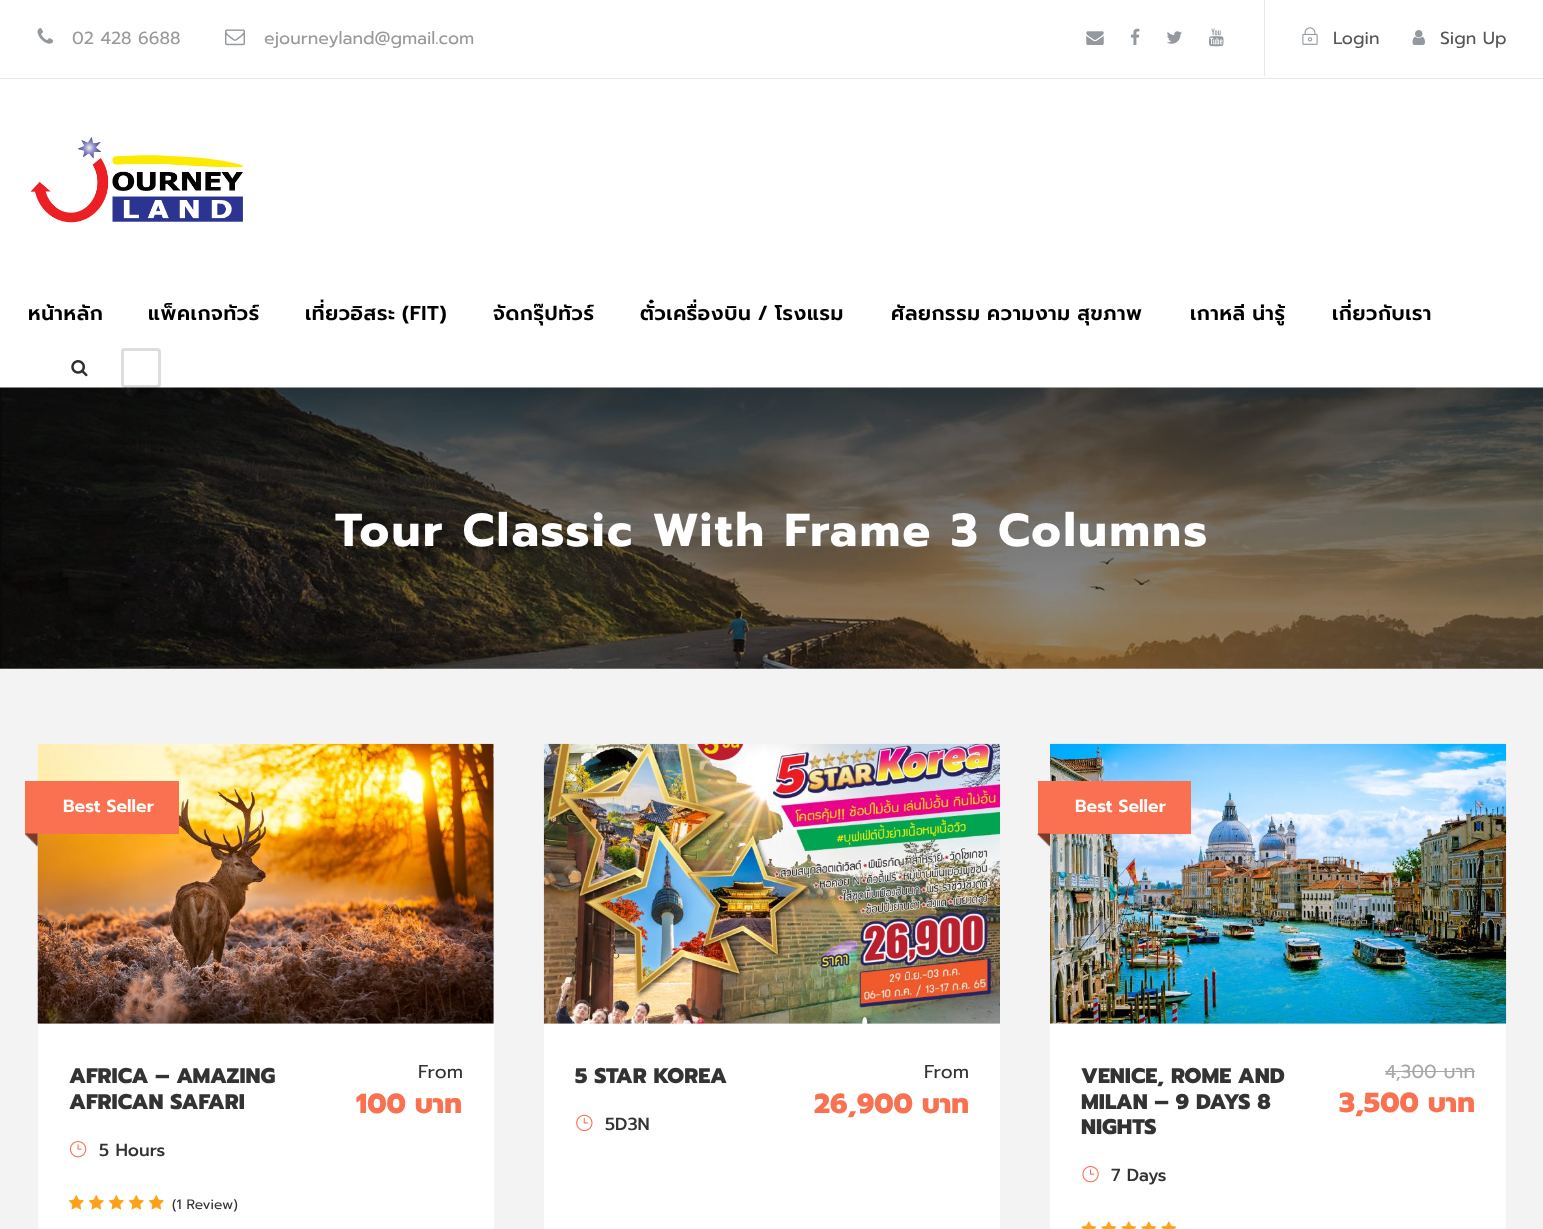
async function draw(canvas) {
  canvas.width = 1543;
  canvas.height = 1229;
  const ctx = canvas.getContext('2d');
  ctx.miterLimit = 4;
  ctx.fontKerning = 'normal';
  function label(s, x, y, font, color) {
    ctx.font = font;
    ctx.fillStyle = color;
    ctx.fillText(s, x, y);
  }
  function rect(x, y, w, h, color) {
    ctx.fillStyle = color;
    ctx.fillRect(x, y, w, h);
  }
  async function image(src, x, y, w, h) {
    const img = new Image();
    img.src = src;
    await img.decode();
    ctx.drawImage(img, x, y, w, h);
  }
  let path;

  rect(0, 0, 1543, 1229, '#fff');
  rect(0, 78, 1543, 1, '#e9e9e9');
  await image('assets/img1.png', 37, 28, 17, 16);
  label('02 428 6688', 72, 44, '17.5px Prompt', '#999');
  await image('assets/img2.png', 225, 29, 20, 17);
  label('ejourneyland@gmail.com', 264, 44, '17.5px Prompt', '#999');
  await image('assets/img3.png', 1086, 31, 18, 14);
  await image('assets/img4.png', 1130, 28, 10, 17);
  await image('assets/img5.png', 1167, 31, 15, 13);
  await image('assets/img6.png', 1209, 28, 15, 19);
  rect(1264, 0, 1, 76, '#e9e9e9');
  await image('assets/img7.png', 1302, 27, 16, 18);
  label('Login', 1333, 44, '17.5px Prompt', '#565656');
  await image('assets/img8.png', 1412, 30, 13, 15);
  label('Sign Up', 1440, 44, '17.5px Prompt', '#565656');
  await image('assets/img9.png', 30, 137, 214, 86);
  ctx.letterSpacing = '0.6px';
  label('หน้าหลัก', 28, 320, '600 20px Prompt', '#000');
  label('แพ็คเกจทัวร์', 148, 320, '600 20px Prompt', '#000');
  ctx.wordSpacing = '-1px';
  label('เที่ยวอิสระ (FIT)', 305, 320, '600 20px Prompt', '#000');
  ctx.wordSpacing = '0px';
  label('จัดกรุ๊ปทัวร์', 493, 320, '600 20px Prompt', '#000');
  ctx.wordSpacing = '-1px';
  label('ตั๋วเครื่องบิน / โรงแรม', 640, 320, '600 20px Prompt', '#000');
  label('ศัลยกรรม ความงาม สุขภาพ', 891, 320, '600 20px Prompt', '#000');
  label('เกาหลี น่ารู้', 1190, 320, '600 20px Prompt', '#000');
  ctx.wordSpacing = '0px';
  label('เกี่ยวกับเรา', 1332, 320, '600 20px Prompt', '#000');
  await image('assets/img10.png', 71, 360, 17, 17);
  ctx.beginPath();
  ctx.roundRect(122.5, 349.5, 37, 37, 2.5);
  ctx.strokeStyle = '#ddd';
  ctx.lineWidth = 3;
  ctx.stroke();
  await image('assets/img11.png', 0, 387, 1543, 282);
  ctx.letterSpacing = '2.5px';
  label('Tour Classic With Frame 3 Columns', 335, 546, 'bold 46.25px Prompt', '#fff');
  rect(0, 669, 1543, 560, '#f3f3f3');
  await image('assets/img13.png', 37, 743, 457, 281);
  rect(25, 781, 154, 53, '#f97150');
  ctx.letterSpacing = '0px';
  label('Best Seller', 63, 812, '600 17.5px Prompt', '#fff');
  await image('assets/img12.png', 25, 833, 13, 14);
  ctx.fillStyle = '#f9715080';
  path = new Path2D('M37.5 834V846L25 834Z');
  ctx.fill(path);
  rect(38, 1024, 456, 205, '#fff');
  label('AFRICA – AMAZING', 69, 1083, '800 21.25px Prompt', '#333');
  label('AFRICAN SAFARI', 69, 1109, '800 21.25px Prompt', '#333');
  label('From', 418, 1078, '18.75px Prompt', '#333');
  label('100 บาท', 356, 1113, '800 27.5px Prompt', '#f97150');
  await image('assets/img14.png', 69, 1141, 18, 17);
  label('5 Hours', 99, 1156, '500 17.5px Prompt', '#333');
  await image('assets/img15.png', 68, 1195, 16, 15);
  await image('assets/img15.png', 88, 1195, 16, 15);
  await image('assets/img15.png', 108, 1195, 16, 15);
  await image('assets/img15.png', 128, 1195, 16, 15);
  await image('assets/img15.png', 148, 1195, 16, 15);
  label('(1 Review)', 172, 1209, '13.75px Prompt', '#333');
  await image('assets/img16.png', 543, 743, 457, 281);
  rect(544, 1024, 456, 205, '#fff');
  label('5 STAR KOREA', 575, 1083, '800 21.25px Prompt', '#333');
  label('From', 924, 1078, '18.75px Prompt', '#333');
  label('26,900 บาท', 814, 1113, '800 27.5px Prompt', '#f97150');
  await image('assets/img17.png', 576, 1114, 17, 18);
  label('5D3N', 605, 1130, '500 17.5px Prompt', '#333');
  await image('assets/img19.png', 1050, 743, 457, 281);
  rect(1038, 781, 153, 53, '#f97150');
  label('Best Seller', 1075, 812, '600 17.5px Prompt', '#fff');
  await image('assets/img18.png', 1037, 833, 13, 14);
  ctx.fillStyle = '#f9715080';
  path = new Path2D('M1050 834V846L1037.5 834Z');
  ctx.fill(path);
  rect(1050, 1024, 456, 205, '#fff');
  label('VENICE, ROME AND', 1081, 1083, '800 21.25px Prompt', '#333');
  label('MILAN – 9 DAYS 8', 1081, 1109, '800 21.25px Prompt', '#333');
  label('NIGHTS', 1081, 1134, '800 21.25px Prompt', '#333');
  label('4,300 บาท', 1385, 1078, '18.75px Prompt', '#a7a7a7');
  rect(1385, 1071, 90, 1, '#a7a7a7');
  label('3,500 บาท', 1339, 1112, '800 27.5px Prompt', '#f97150');
  await image('assets/img20.png', 1082, 1166, 17, 17);
  label('7 Days', 1111, 1181, '500 17.5px Prompt', '#333');
  await image('assets/img21.png', 1081, 1221, 16, 8);
  await image('assets/img21.png', 1101, 1221, 16, 8);
  await image('assets/img21.png', 1121, 1221, 16, 8);
  await image('assets/img21.png', 1141, 1221, 16, 8);
  await image('assets/img21.png', 1161, 1221, 16, 8);
}

draw(document.querySelector('canvas'));
